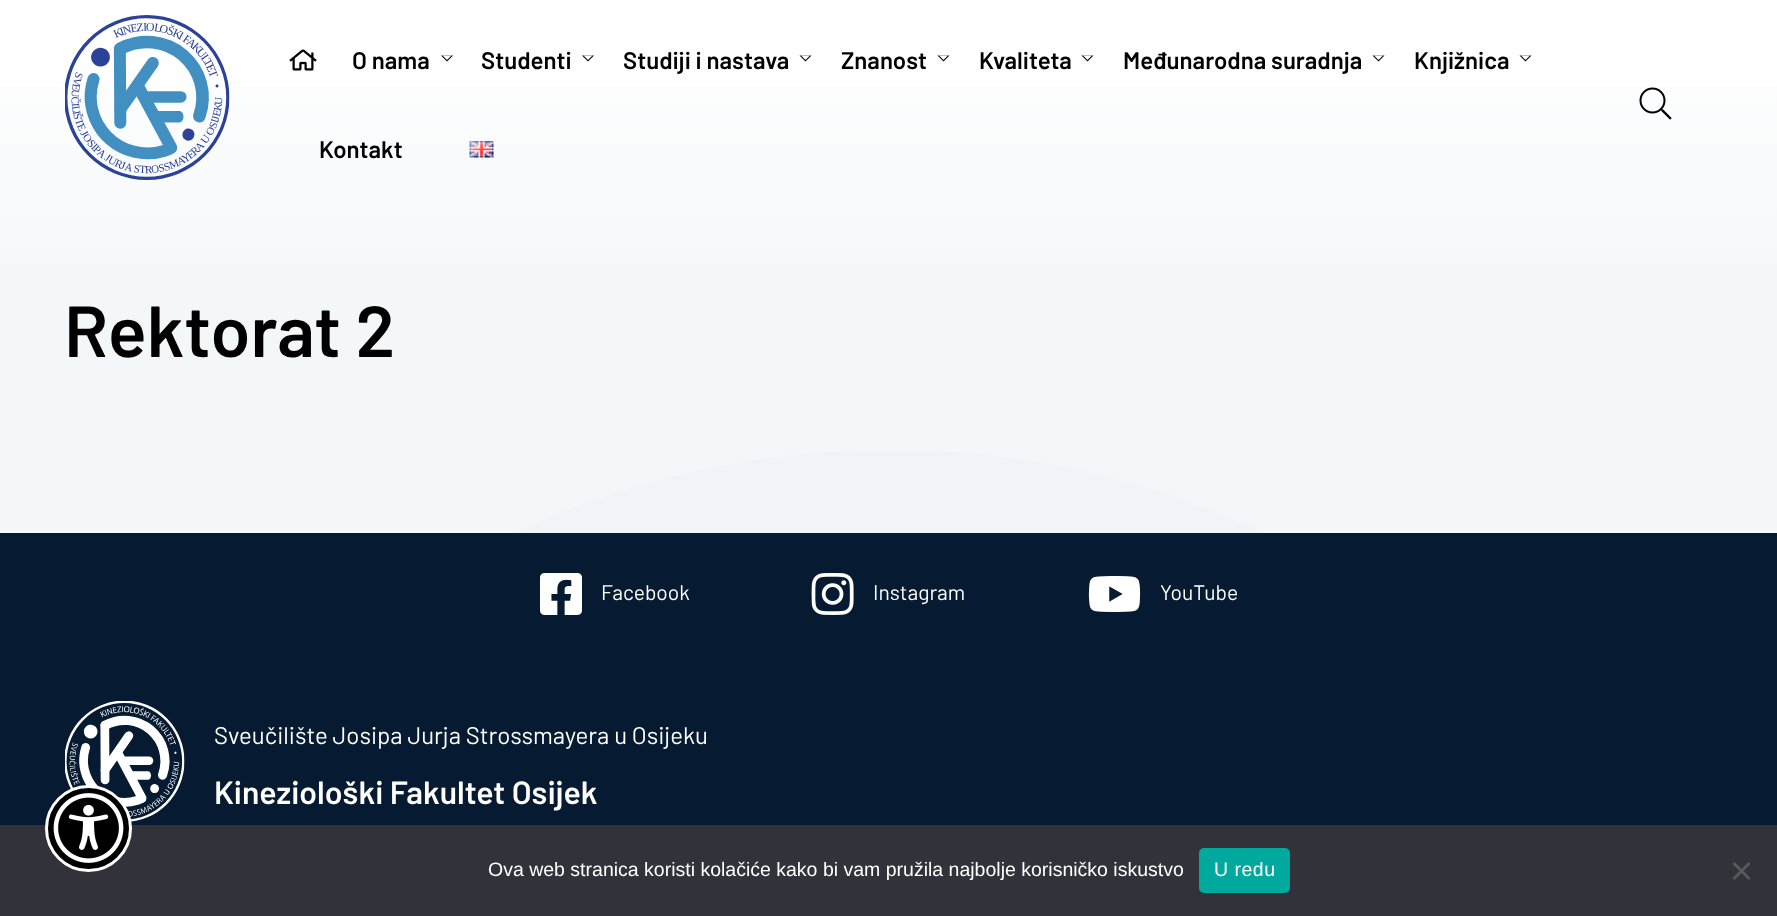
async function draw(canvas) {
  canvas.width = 1777;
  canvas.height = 916;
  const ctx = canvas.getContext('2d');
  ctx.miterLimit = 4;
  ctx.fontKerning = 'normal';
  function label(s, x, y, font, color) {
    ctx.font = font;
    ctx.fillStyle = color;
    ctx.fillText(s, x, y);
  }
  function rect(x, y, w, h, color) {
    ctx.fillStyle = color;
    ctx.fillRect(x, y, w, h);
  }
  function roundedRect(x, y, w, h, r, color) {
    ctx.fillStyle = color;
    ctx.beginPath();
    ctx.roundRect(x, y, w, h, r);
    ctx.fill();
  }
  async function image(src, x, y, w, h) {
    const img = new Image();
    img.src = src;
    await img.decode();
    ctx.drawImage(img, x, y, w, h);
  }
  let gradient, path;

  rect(0, 0, 1777, 916, '#fff');
  gradient = ctx.createLinearGradient(889, 0, 889, 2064);
  gradient.addColorStop(0, '#fff');
  gradient.addColorStop(0.01, '#fff');
  gradient.addColorStop(0.15, '#f4f7f9');
  ctx.fillStyle = gradient;
  ctx.fillRect(0, 86, 1777, 447);
  await image('assets/img1.png', 513, 451, 753, 82);
  await image('assets/img2.png', 65, 15, 165, 165);
  await image('assets/img3.png', 289, 49, 28, 22);
  label('O nama', 352, 69, '600 24px Barlow', '#000');
  path = new Path2D('M441 55.5H453L447 61.5Z');
  ctx.fill(path);
  ctx.fillStyle = '#fff';
  path = new Path2D('M442.5 55.5H451.5L447 60Z');
  ctx.fill(path);
  label('Studenti', 481, 69, '600 24px Barlow', '#000');
  path = new Path2D('M582 55.5H594L588 61.5Z');
  ctx.fill(path);
  ctx.fillStyle = '#fff';
  path = new Path2D('M583.5 55.5H592.5L588 60Z');
  ctx.fill(path);
  label('Studiji i nastava', 623, 69, '600 24px Barlow', '#000');
  path = new Path2D('M799.5 55.5H811.5L805.5 61.5Z');
  ctx.fill(path);
  ctx.fillStyle = '#fff';
  path = new Path2D('M801 55.5H810L805.5 60Z');
  ctx.fill(path);
  label('Znanost', 841, 69, '600 24px Barlow', '#000');
  path = new Path2D('M937.5 55.5H949.5L943.5 61.5Z');
  ctx.fill(path);
  ctx.fillStyle = '#fff';
  path = new Path2D('M939 55.5H948L943.5 60Z');
  ctx.fill(path);
  label('Kvaliteta', 979, 69, '600 24px Barlow', '#000');
  path = new Path2D('M1081.5 55.5H1093.5L1087.5 61.5Z');
  ctx.fill(path);
  ctx.fillStyle = '#fff';
  path = new Path2D('M1083 55.5H1092L1087.5 60Z');
  ctx.fill(path);
  label('Međunarodna suradnja', 1123, 69, '600 24px Barlow', '#000');
  path = new Path2D('M1372.5 55.5H1384.5L1378.5 61.5Z');
  ctx.fill(path);
  ctx.fillStyle = '#fff';
  path = new Path2D('M1374 55.5H1383L1378.5 60Z');
  ctx.fill(path);
  label('Knjižnica', 1414, 69, '600 24px Barlow', '#000');
  path = new Path2D('M1519.5 55.5H1531.5L1525.5 61.5Z');
  ctx.fill(path);
  ctx.fillStyle = '#fff';
  path = new Path2D('M1521 55.5H1530L1525.5 60Z');
  ctx.fill(path);
  label('Kontakt', 319, 158, '600 24px Barlow', '#000');
  await image('assets/img4.png', 469, 141, 25, 17);
  await image('assets/img5.png', 1639, 87, 33, 33);
  label('Rektorat 2', 64, 357, '600 72px Barlow', '#000');
  rect(0, 533, 1777, 292, '#061b32');
  await image('assets/img6.png', 540, 573, 42, 42);
  label('Facebook', 601, 600, '21px Barlow', '#fff');
  await image('assets/img7.png', 811, 573, 43, 42);
  label('Instagram', 873, 600, '21px Barlow', '#fff');
  await image('assets/img8.png', 1088, 576, 53, 36);
  label('YouTube', 1160, 600, '21px Barlow', '#fff');
  await image('assets/img9.png', 65, 701, 120, 121);
  label('Sveučilište Josipa Jurja Strossmayera u Osijeku', 214, 744, '24px Barlow', '#fff');
  label('Kineziološki Fakultet Osijek', 214, 804, '600 32px Barlow', '#fff');
  rect(0, 825, 1777, 91, '#32323a');
  label('Ova web stranica koristi kolačiće kako bi vam pružila najbolje korisničko iskustvo', 488, 876, '19.5px Liberation Sans', '#fff');
  roundedRect(1199, 848, 91, 45, 5, '#00a99d');
  ctx.letterSpacing = '0.5px';
  label('U redu', 1214, 876, '19.5px Liberation Sans', '#fff');
  ctx.fillStyle = '#59595d';
  path = new Path2D('M1748.5 862L1750.5 864L1734.5 880L1732.5 878Z');
  ctx.fill(path);
  path = new Path2D('M1732.5 864L1734.5 862L1750.5 878L1748.5 880Z');
  ctx.fill(path);
  ctx.fillStyle = '#000';
  ctx.beginPath();
  ctx.arc(88.5, 828.5, 42, 0, 2 * Math.PI);
  ctx.fill();
  ctx.strokeStyle = '#fff';
  ctx.lineWidth = 3;
  ctx.stroke();
  await image('assets/img10.png', 53, 793, 71, 70);
}

draw(document.querySelector('canvas'));
